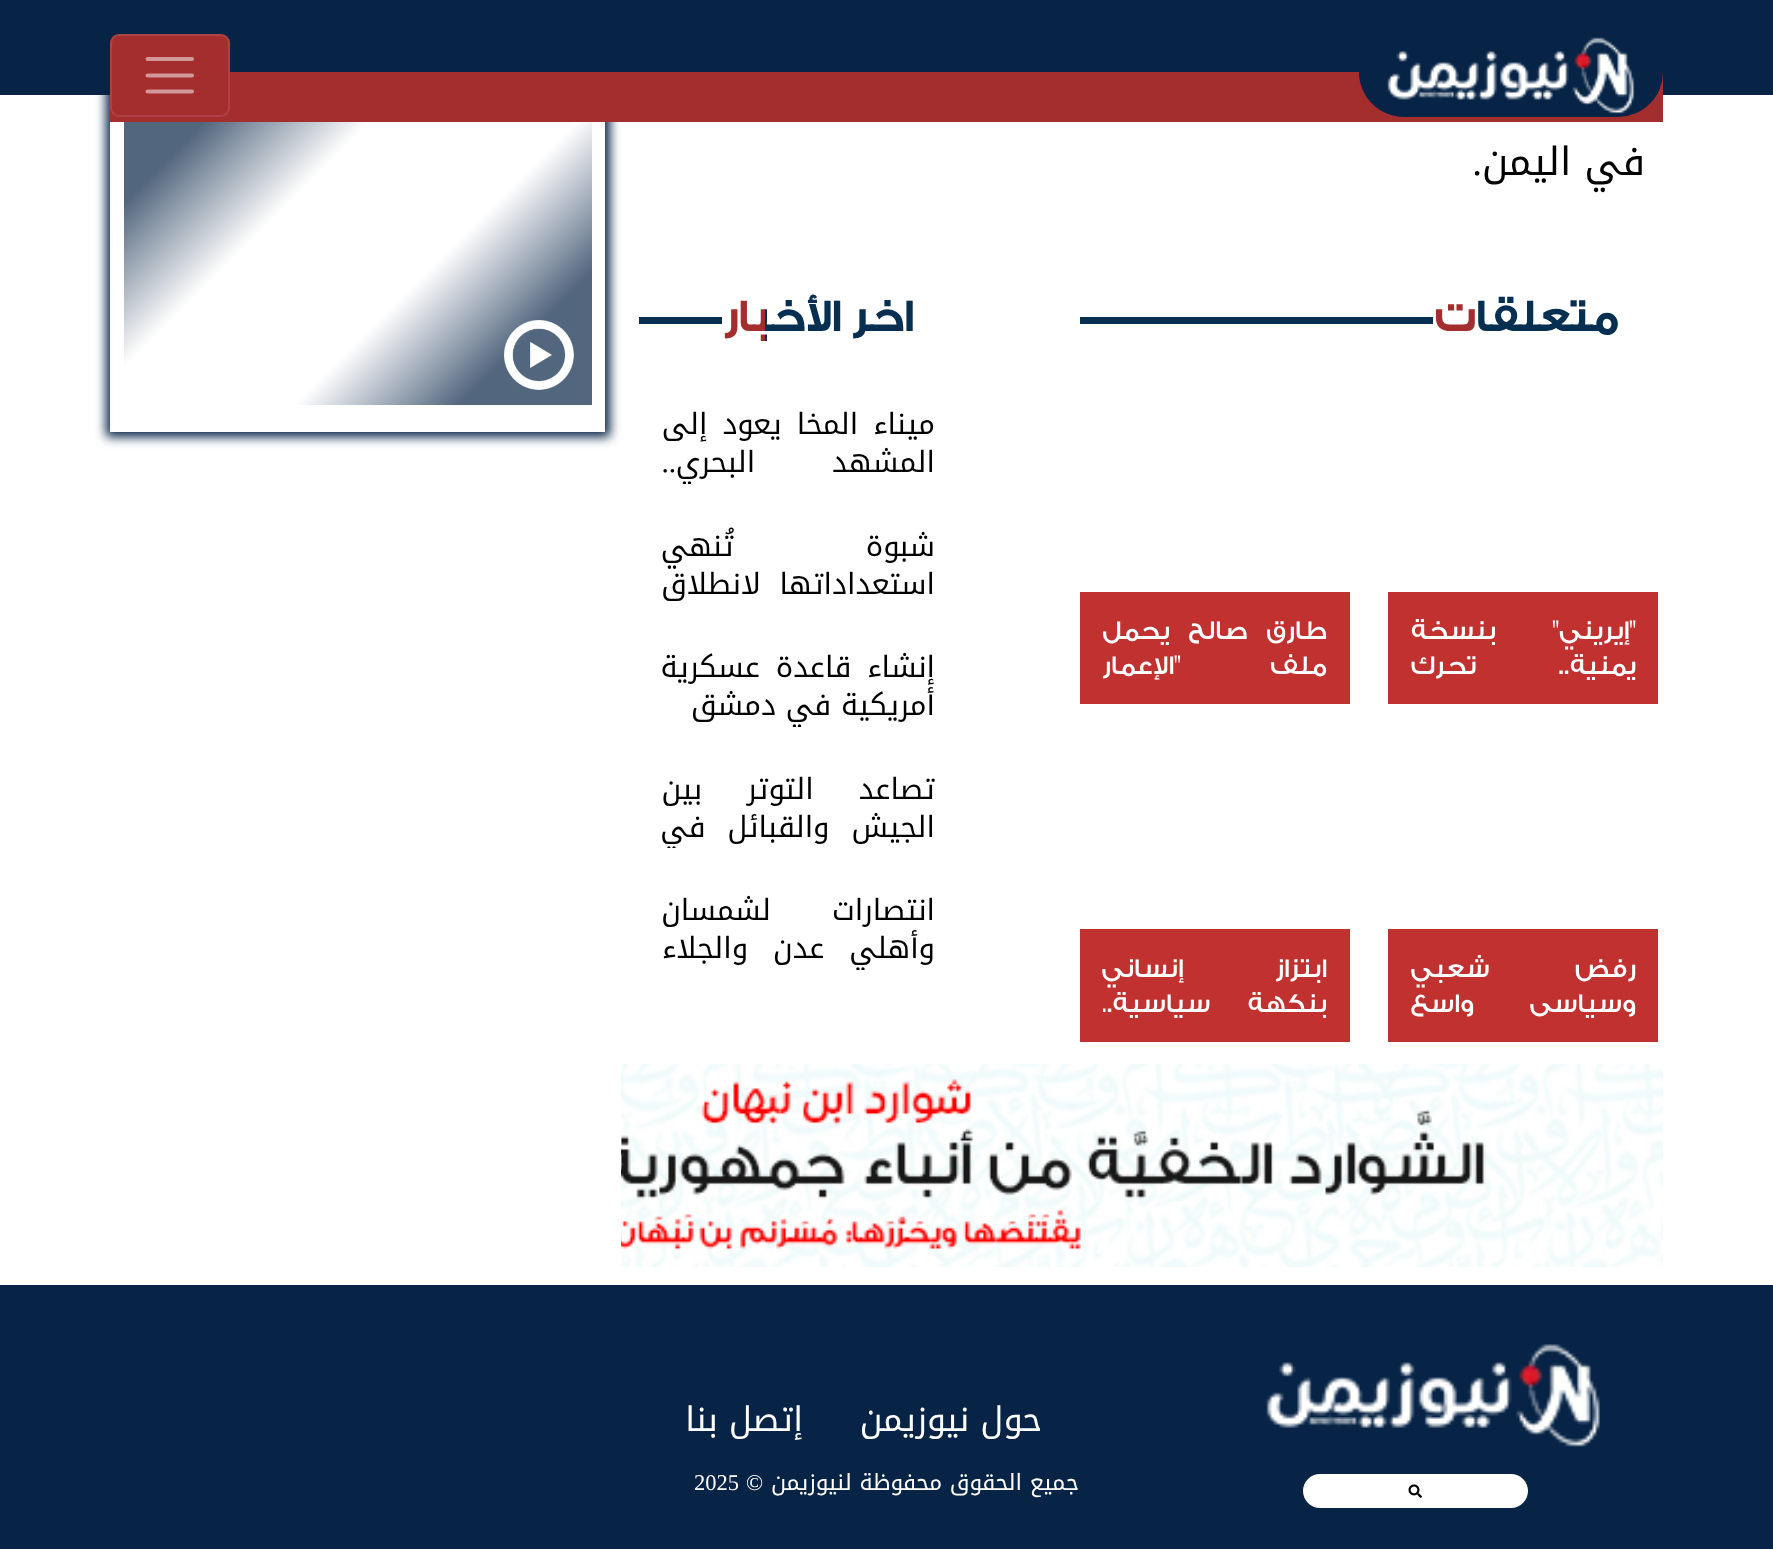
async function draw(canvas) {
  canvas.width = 1773;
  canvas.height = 1549;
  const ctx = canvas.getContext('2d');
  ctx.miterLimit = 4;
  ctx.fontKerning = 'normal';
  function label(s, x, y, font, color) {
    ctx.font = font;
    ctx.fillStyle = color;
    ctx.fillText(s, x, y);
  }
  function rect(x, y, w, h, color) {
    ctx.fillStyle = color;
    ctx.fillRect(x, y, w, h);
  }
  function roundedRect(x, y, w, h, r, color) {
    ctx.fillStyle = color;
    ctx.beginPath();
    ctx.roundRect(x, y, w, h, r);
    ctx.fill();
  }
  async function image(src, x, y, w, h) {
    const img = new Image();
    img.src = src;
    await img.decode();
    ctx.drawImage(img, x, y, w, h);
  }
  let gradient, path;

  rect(0, 0, 1773, 1549, '#fff');
  ctx.fillStyle = '#072446';
  ctx.filter = 'blur(5.5px)';
  ctx.beginPath();
  ctx.rect(106, -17, 504, 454);
  ctx.fill();
  ctx.filter = 'none';
  rect(0, 0, 1773, 95, '#072446');
  rect(110, 122, 495, 310, '#fff');
  ctx.save();
  ctx.beginPath();
  ctx.rect(124, 113, 468, 292);
  ctx.clip();
  gradient = ctx.createLinearGradient(151, 51, 565, 465);
  gradient.addColorStop(0.15, '#52667e');
  gradient.addColorStop(0.35, '#fff');
  gradient.addColorStop(0.6, '#fff');
  gradient.addColorStop(0.8, '#52667e');
  ctx.fillStyle = gradient;
  path = new Path2D('M-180 382L482-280L896 134L234 796Z');
  ctx.fill(path);
  ctx.restore();
  rect(110, 72, 1553, 50, '#a42e2e');
  roundedRect(1359, 27, 304, 90, 45, '#072446');
  await image('assets/img1.png', 1387, 37, 248, 77);
  roundedRect(110, 34, 120, 83, 9, '#a42e2e');
  ctx.beginPath();
  ctx.roundRect(111, 35, 118, 81, 8);
  ctx.strokeStyle = '#ffffff1a';
  ctx.lineWidth = 2;
  ctx.stroke();
  path = new Path2D('M147.5 59H192M147.5 75.5H192M147.5 91.5H192');
  ctx.strokeStyle = '#d29797';
  ctx.lineWidth = 4;
  ctx.lineCap = 'round';
  ctx.stroke(path);
  ctx.direction = 'rtl';
  label('في اليمن', 1645, 175, '39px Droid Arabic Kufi', '#000');
  label('.', 1482, 175, '39px Liberation Serif', '#000');
  ctx.font = 'bold 45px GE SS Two';
  gradient = ctx.createLinearGradient(1640, 317, 1434, 317);
  gradient.addColorStop(0.8, '#072f52');
  gradient.addColorStop(0.8, '#a42e2e');
  ctx.fillStyle = gradient;
  ctx.fillText('متعلقات', 1618, 331);
  rect(1080, 317, 353, 7, '#072f52');
  rect(1388, 592, 270, 112, '#c03130');
  ctx.wordSpacing = '50px';
  label('"إيريني" بنسخة', 1636, 639, '500 27px GE SS Two', '#fff');
  ctx.wordSpacing = '76px';
  label('يمنية.. تحرك', 1636, 674, '500 27px GE SS Two', '#fff');
  rect(1080, 592, 270, 112, '#c03130');
  ctx.wordSpacing = '12px';
  label('طارق صالح يحمل', 1327, 639, '500 27px GE SS Two', '#fff');
  ctx.wordSpacing = '83px';
  label('ملف "الإعمار', 1327, 674, '500 27px GE SS Two', '#fff');
  rect(1388, 929, 270, 113, '#c03130');
  ctx.wordSpacing = '79px';
  label('رفض شعبي', 1636, 977, '500 27px GE SS Two', '#fff');
  ctx.save();
  ctx.beginPath();
  ctx.rect(1411, 952, 225, 67);
  ctx.clip();
  ctx.wordSpacing = '49px';
  label('وسياسي واسع', 1636, 1012, '500 27px GE SS Two', '#fff');
  ctx.restore();
  rect(1080, 929, 270, 113, '#c03130');
  ctx.wordSpacing = '85px';
  label('ابتزاز إنساني', 1327, 977, '500 27px GE SS Two', '#fff');
  ctx.save();
  ctx.beginPath();
  ctx.rect(1103, 952, 225, 67);
  ctx.clip();
  ctx.wordSpacing = '31px';
  label('بنكهة سياسية..', 1327, 1012, '500 27px GE SS Two', '#fff');
  ctx.restore();
  ctx.wordSpacing = '0px';
  ctx.font = 'bold 45px GE SS Two';
  gradient = ctx.createLinearGradient(935, 317, 723, 317);
  gradient.addColorStop(0.8, '#072f52');
  gradient.addColorStop(0.8, '#a42e2e');
  ctx.fillStyle = gradient;
  ctx.fillText('اخر الأخبار', 913, 331);
  rect(639, 317, 83, 7, '#072f52');
  ctx.wordSpacing = '5px';
  label('ميناء المخا يعود إلى', 935, 434, '29.25px Droid Arabic Kufi', '#000');
  ctx.save();
  ctx.beginPath();
  ctx.rect(639, 394, 320, 90);
  ctx.clip();
  ctx.wordSpacing = '67px';
  label('المشهد البحري', 935, 472, '29.25px Droid Arabic Kufi', '#000');
  ctx.restore();
  ctx.wordSpacing = '0px';
  label('..', 676, 472, '29.25px Liberation Serif', '#000');
  ctx.wordSpacing = '122px';
  label('شبوة تُنهي', 935, 556, '29.25px Droid Arabic Kufi', '#000');
  ctx.wordSpacing = '9px';
  label('استعداداتها لانطلاق', 935, 594, '29.25px Droid Arabic Kufi', '#000');
  ctx.wordSpacing = '6px';
  label('إنشاء قاعدة عسكرية', 935, 677, '29.25px Droid Arabic Kufi', '#000');
  ctx.save();
  ctx.beginPath();
  ctx.rect(639, 637, 320, 90);
  ctx.clip();
  ctx.wordSpacing = '0px';
  label('أمريكية في دمشق', 935, 715, '29.25px Droid Arabic Kufi', '#000');
  ctx.restore();
  ctx.wordSpacing = '35px';
  label('تصاعد التوتر بين', 935, 799, '29.25px Droid Arabic Kufi', '#000');
  ctx.save();
  ctx.beginPath();
  ctx.rect(639, 758, 320, 90);
  ctx.clip();
  ctx.wordSpacing = '12px';
  label('الجيش والقبائل في', 935, 837, '29.25px Droid Arabic Kufi', '#000');
  ctx.restore();
  ctx.wordSpacing = '51px';
  label('انتصارات لشمسان', 935, 920, '29.25px Droid Arabic Kufi', '#000');
  ctx.save();
  ctx.beginPath();
  ctx.rect(639, 880, 320, 90);
  ctx.clip();
  ctx.wordSpacing = '15px';
  label('وأهلي عدن والجلاء', 935, 958, '29.25px Droid Arabic Kufi', '#000');
  ctx.restore();
  await image('assets/img2.png', 621, 1064, 1042, 203);
  await image('assets/img3.png', 504, 320, 70, 70);
  rect(0, 1285, 1773, 264, '#072446');
  await image('assets/img4.png', 1266, 1344, 334, 103);
  roundedRect(1303, 1474, 225, 34, 17, '#fff');
  await image('assets/img5.png', 1408, 1484, 14, 14);
  ctx.wordSpacing = '0px';
  label('حول نيوزيمن', 1042, 1431, '33.75px Droid Arabic Kufi', '#fff');
  label('إتصل بنا', 803, 1431, '33.75px Droid Arabic Kufi', '#fff');
  label('جميع الحقوق محفوظة لنيوزيمن', 1079, 1490, '22.5px Droid Arabic Kufi', '#fff');
  label('©', 763, 1490, '22.5px Liberation Serif', '#fff');
  ctx.direction = 'ltr';
  label('2025', 694, 1490, '22.5px Liberation Serif', '#fff');
}

draw(document.querySelector('canvas'));
